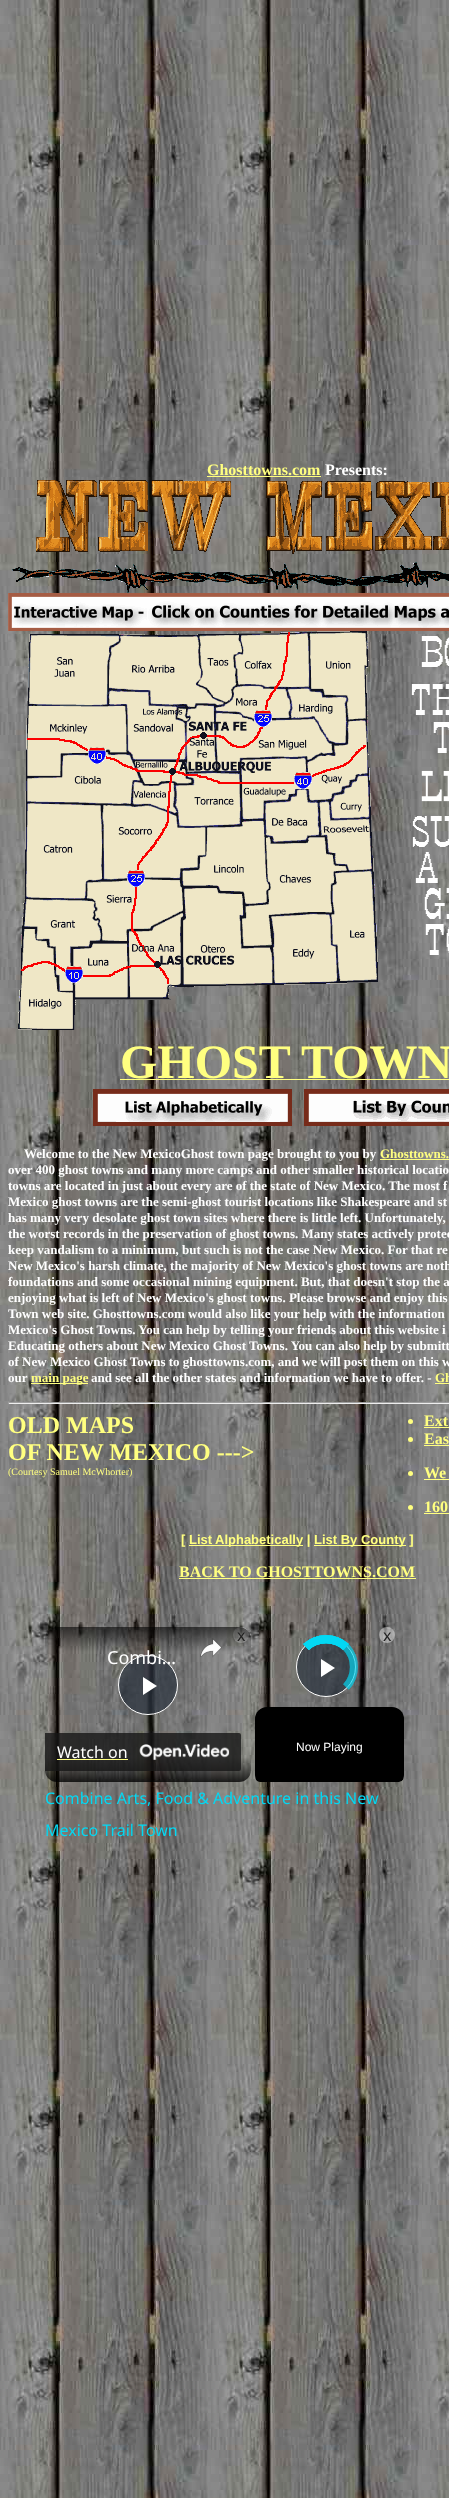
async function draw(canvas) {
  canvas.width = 449;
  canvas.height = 2498;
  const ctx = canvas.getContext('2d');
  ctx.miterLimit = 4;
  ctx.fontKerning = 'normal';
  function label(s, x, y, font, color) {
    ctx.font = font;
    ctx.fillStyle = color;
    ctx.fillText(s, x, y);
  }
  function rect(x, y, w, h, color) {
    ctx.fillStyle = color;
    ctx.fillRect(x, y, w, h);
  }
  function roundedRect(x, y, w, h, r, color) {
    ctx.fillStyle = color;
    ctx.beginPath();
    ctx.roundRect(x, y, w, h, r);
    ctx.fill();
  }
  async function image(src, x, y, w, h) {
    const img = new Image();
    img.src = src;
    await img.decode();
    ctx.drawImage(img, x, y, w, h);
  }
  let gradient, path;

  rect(0, 0, 449, 2498, '#fff');
  await image('assets/img1.png', 0, 0, 449, 2498);
  label('Ghosttowns.com', 207, 475, 'bold 16px Liberation Serif', '#ffff80');
  rect(207, 476, 114, 1, '#ffff80');
  label('Presents:', 325, 475, 'bold 16px Liberation Serif', '#fff');
  await image('assets/img2.png', 36, 480, 413, 74);
  await image('assets/img3.png', 12, 562, 437, 31);
  await image('assets/img4.png', 8, 593, 441, 38);
  await image('assets/img5.png', 18, 631, 360, 399);
  await image('assets/img6.png', 421, 636, 28, 31);
  await image('assets/img7.png', 411, 684, 38, 69);
  await image('assets/img8.png', 421, 770, 28, 32);
  await image('assets/img9.png', 412, 816, 37, 139);
  label('GHOST TOWN', 120, 1078, 'bold 48px Liberation Serif', '#ffff80');
  rect(120, 1079, 329, 1, '#ffff80');
  await image('assets/img10.png', 93, 1089, 199, 37);
  await image('assets/img11.png', 304, 1089, 145, 37);
  label('Welcome to the New MexicoGhost town page brought to you by', 24, 1158, 'bold 13px Liberation Serif', '#fff');
  label('Ghosttowns.', 380, 1158, 'bold 13px Liberation Serif', '#ffff80');
  rect(380, 1159, 69, 1, '#ffff80');
  label('over 400 ghost towns and many more camps and other smaller historical locatio', 8, 1174, 'bold 13px Liberation Serif', '#fff');
  label('towns are located in just about every are of the state of New Mexico. The most f', 8, 1190, 'bold 13px Liberation Serif', '#fff');
  label('Mexico ghost towns are the semi-ghost tourist locations like Shakespeare and st', 8, 1206, 'bold 13px Liberation Serif', '#fff');
  label('has many very desolate ghost town sites where there is little left. Unfortunately,', 8, 1222, 'bold 13px Liberation Serif', '#fff');
  label('the worst records in the preservation of ghost towns. Many states actively protec', 8, 1238, 'bold 13px Liberation Serif', '#fff');
  label('keep vandalism to a minimum, but such is not the case New Mexico. For that re', 8, 1254, 'bold 13px Liberation Serif', '#fff');
  label('New Mexico\'s harsh climate, the majority of New Mexico\'s ghost towns are noth', 8, 1270, 'bold 13px Liberation Serif', '#fff');
  label('foundations and some occasional mining equipment. But, that doesn\'t stop the a', 8, 1286, 'bold 13px Liberation Serif', '#fff');
  label('enjoying what is left of New Mexico\'s ghost towns. Please browse and enjoy this', 8, 1302, 'bold 13px Liberation Serif', '#fff');
  label('Town web site. Ghosttowns.com would also like your help with the information', 8, 1318, 'bold 13px Liberation Serif', '#fff');
  label('Mexico\'s Ghost Towns. You can help by telling your friends about this website i', 8, 1334, 'bold 13px Liberation Serif', '#fff');
  label('Educating others about New Mexico Ghost Towns. You can also help by submitt', 8, 1350, 'bold 13px Liberation Serif', '#fff');
  label('of New Mexico Ghost Towns to ghosttowns.com, and we will post them on this w', 8, 1366, 'bold 13px Liberation Serif', '#fff');
  label('our', 8, 1382, 'bold 13px Liberation Serif', '#fff');
  rect(31, 1383, 57, 1, '#ffff80');
  label('main page', 31, 1382, 'bold 13px Liberation Serif', '#ffff80');
  label('and see all the other states and information we have to offer. -', 91, 1382, 'bold 13px Liberation Serif', '#fff');
  label('Gh', 435, 1382, 'bold 13px Liberation Serif', '#ffff80');
  rect(435, 1383, 14, 1, '#ffff80');
  rect(8, 1402, 441, 1, '#9f9f9f');
  rect(8, 1403, 441, 1, '#eee');
  rect(8, 1402, 1, 2, '#9f9f9f');
  label('OLD MAPS', 8, 1433, 'bold 24px Liberation Serif', '#ffff80');
  label('OF NEW MEXICO --->', 8, 1460, 'bold 24px Liberation Serif', '#ffff80');
  label('(Courtesy Samuel McWhorter)', 8, 1475, '10px Liberation Serif', '#ffff80');
  ctx.beginPath();
  ctx.arc(410.5, 1421.5, 2.5, 0, 2 * Math.PI);
  ctx.fill();
  label('Ext', 424, 1426, 'bold 16px Liberation Serif', '#ffff80');
  rect(424, 1427, 25, 1, '#ffff80');
  ctx.beginPath();
  ctx.arc(410.5, 1439.5, 2.5, 0, 2 * Math.PI);
  ctx.fill();
  label('Eas', 424, 1444, 'bold 16px Liberation Serif', '#ffff80');
  rect(424, 1445, 25, 1, '#ffff80');
  ctx.beginPath();
  ctx.arc(410.5, 1473.5, 2.5, 0, 2 * Math.PI);
  ctx.fill();
  label('We', 424, 1478, 'bold 16px Liberation Serif', '#ffff80');
  rect(424, 1479, 25, 1, '#ffff80');
  ctx.beginPath();
  ctx.arc(410.5, 1507.5, 2.5, 0, 2 * Math.PI);
  ctx.fill();
  label('160', 424, 1512, 'bold 16px Liberation Serif', '#ffff80');
  rect(424, 1513, 25, 1, '#ffff80');
  label('[ List', 181, 1544, 'bold 13px Liberation Sans', '#ffff80');
  rect(189, 1545, 114, 1, '#ffff80');
  label('Alphabetically |', 215, 1544, 'bold 13px Liberation Sans', '#ffff80');
  rect(314, 1545, 92, 1, '#ffff80');
  label('List By County ]', 314, 1544, 'bold 13px Liberation Sans', '#ffff80');
  label('BACK TO GHOSTTOWNS.COM', 179, 1577, 'bold 16px Liberation Serif', '#ffff80');
  rect(179, 1578, 237, 1, '#ffff80');
  ctx.fillStyle = '#ffffff66';
  ctx.beginPath();
  ctx.arc(241, 1635, 8, 0, 2 * Math.PI);
  ctx.fill();
  ctx.fillStyle = '#2b333fb3';
  ctx.beginPath();
  ctx.arc(148, 1685, 29.5, 0, 2 * Math.PI);
  ctx.fill();
  ctx.strokeStyle = '#fff';
  ctx.stroke();
  ctx.fillStyle = '#fff';
  path = new Path2D('M143 1677V1695L157 1686Z');
  ctx.fill(path);
  gradient = ctx.createLinearGradient(148, 1627, 148, 1782);
  gradient.addColorStop(0, '#00000099');
  gradient.addColorStop(0.16, '#00000000');
  gradient.addColorStop(0.84, '#00000000');
  gradient.addColorStop(1, '#000000cc');
  ctx.fillStyle = gradient;
  ctx.beginPath();
  ctx.roundRect(45, 1627, 206, 155, 12);
  ctx.fill();
  label('x', 237, 1641, '16px Noto Sans', '#212121');
  label('Combi…', 107, 1664, '18px Noto Sans', '#fff');
  await image('assets/img12.png', 200, 1638, 22, 20);
  ctx.fillStyle = '#171717cc';
  ctx.beginPath();
  ctx.roundRect(45, 1733, 196, 38, [0, 2, 2, 0]);
  ctx.fill();
  label('Watch on', 57, 1758, '16px Noto Sans', '#fff');
  rect(57, 1759, 71, 1, '#ffff80');
  await image('assets/img13.png', 139, 1744, 91, 16);
  ctx.fillStyle = '#2b333fb3';
  ctx.beginPath();
  ctx.arc(326, 1667, 29.5, 0, 2 * Math.PI);
  ctx.fill();
  ctx.stroke();
  path = new Path2D('M306 1647C317 1636.5 335 1636.5 346 1647');
  ctx.strokeStyle = '#03d8f3';
  ctx.lineWidth = 8;
  ctx.stroke(path);
  path = new Path2D('M346 1647C356.5 1658 356.5 1676 346 1687');
  ctx.strokeStyle = '#03d8f340';
  ctx.stroke(path);
  path = new Path2D('M306 1647C317 1636.5 335 1636.5 346 1647');
  ctx.strokeStyle = '#03d8f3';
  ctx.stroke(path);
  path = new Path2D('M346 1647C356.5 1658 356.5 1676 346 1687');
  ctx.strokeStyle = '#03d8f340';
  ctx.stroke(path);
  path = new Path2D('M306 1647C317 1636.5 335 1636.5 346 1647');
  ctx.strokeStyle = '#03d8f3';
  ctx.stroke(path);
  path = new Path2D('M346 1647C356.5 1658 356.5 1676 346 1687');
  ctx.strokeStyle = '#03d8f340';
  ctx.stroke(path);
  path = new Path2D('M306 1647C317 1636.5 335 1636.5 346 1647');
  ctx.strokeStyle = '#03d8f3';
  ctx.stroke(path);
  path = new Path2D('M346 1647C356.5 1658 356.5 1676 346 1687');
  ctx.strokeStyle = '#03d8f340';
  ctx.stroke(path);
  ctx.fillStyle = '#ffffff66';
  ctx.beginPath();
  ctx.arc(387, 1635, 8, 0, 2 * Math.PI);
  ctx.fill();
  label('x', 383, 1641, '16px Noto Sans', '#212121');
  ctx.fillStyle = '#fff';
  path = new Path2D('M321 1659V1677L335 1668Z');
  ctx.fill(path);
  ctx.save();
  ctx.beginPath();
  ctx.roundRect(251, 1627, 153, 155, 5);
  ctx.clip();
  ctx.beginPath();
  ctx.roundRect(255, 1707, 149, 75, 5);
  ctx.clip();
  roundedRect(255, 1707, 149, 80, 12, '#000');
  ctx.restore();
  label('Now Playing', 296, 1751, '12px Liberation Sans', '#fff');
  label('Combine Arts, Food & Adventure in this New', 45, 1804, '16px Noto Sans', '#03d8f3');
  label('Mexico Trail Town', 45, 1836, '16px Noto Sans', '#03d8f3');
}

draw(document.querySelector('canvas'));
